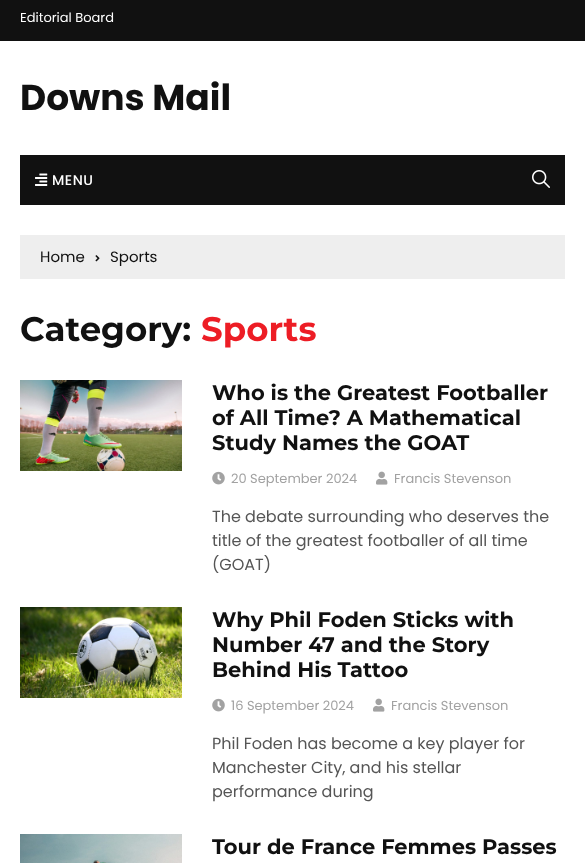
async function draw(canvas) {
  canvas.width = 585;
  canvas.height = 863;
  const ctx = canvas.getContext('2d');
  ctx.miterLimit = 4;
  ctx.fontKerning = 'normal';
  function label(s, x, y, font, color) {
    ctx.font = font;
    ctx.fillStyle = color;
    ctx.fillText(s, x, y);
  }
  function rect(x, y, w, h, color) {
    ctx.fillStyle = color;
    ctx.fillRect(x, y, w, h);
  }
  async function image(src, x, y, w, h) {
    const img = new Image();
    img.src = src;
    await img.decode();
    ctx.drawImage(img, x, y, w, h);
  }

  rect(0, 0, 585, 863, '#fff');
  rect(0, 0, 585, 41, '#111');
  label('Editorial Board', 20, 22, '13px Poppins', '#fff');
  label('Downs Mail', 20, 110, 'bold 36px Poppins', '#111');
  rect(20, 155, 545, 50, '#111');
  await image('assets/img1.png', 35, 173, 13, 13);
  ctx.letterSpacing = '0.5px';
  label('MENU', 52, 185, '500 14px Poppins', '#fff');
  await image('assets/img2.png', 532, 170, 18, 18);
  rect(20, 235, 545, 44, '#eee');
  ctx.letterSpacing = '0px';
  label('Home', 40, 262, '15px Poppins', '#111');
  await image('assets/img3.png', 95, 255, 5, 7);
  label('Sports', 110, 262, '15px Poppins', '#111');
  label('Category:', 20, 341, 'bold 34px Montserrat', '#111');
  label('Sports', 201, 341, 'bold 34px Montserrat', '#ed1d25');
  await image('assets/img4.png', 20, 380, 162, 91);
  label('Who is the Greatest Footballer', 212, 400, 'bold 21px Montserrat', '#111');
  label('of All Time? A Mathematical', 212, 425, 'bold 21px Montserrat', '#111');
  label('Study Names the GOAT', 212, 450, 'bold 21px Montserrat', '#111');
  await image('assets/img5.png', 212, 471, 13, 14);
  label('20 September 2024', 231, 483, '13px Poppins', '#a2a2a2');
  await image('assets/img6.png', 376, 471, 12, 14);
  label('Francis Stevenson', 394, 483, '13px Poppins', '#a2a2a2');
  label('The debate surrounding who deserves the', 212, 522, '16px Poppins', '#555');
  label('title of the greatest footballer of all time', 212, 546, '16px Poppins', '#555');
  label('(GOAT)', 212, 570, '16px Poppins', '#555');
  await image('assets/img7.png', 20, 607, 162, 91);
  label('Why Phil Foden Sticks with', 212, 627, 'bold 21px Montserrat', '#111');
  label('Number 47 and the Story', 212, 652, 'bold 21px Montserrat', '#111');
  label('Behind His Tattoo', 212, 677, 'bold 21px Montserrat', '#111');
  await image('assets/img5.png', 212, 698, 13, 14);
  label('16 September 2024', 231, 710, '13px Poppins', '#a2a2a2');
  await image('assets/img6.png', 373, 698, 12, 14);
  label('Francis Stevenson', 391, 710, '13px Poppins', '#a2a2a2');
  label('Phil Foden has become a key player for', 212, 749, '16px Poppins', '#555');
  label('Manchester City, and his stellar', 212, 773, '16px Poppins', '#555');
  label('performance during', 212, 797, '16px Poppins', '#555');
  await image('assets/img8.png', 20, 834, 162, 29);
  label('Tour de France Femmes Passes', 212, 854, 'bold 21px Montserrat', '#111');
}

draw(document.querySelector('canvas'));
